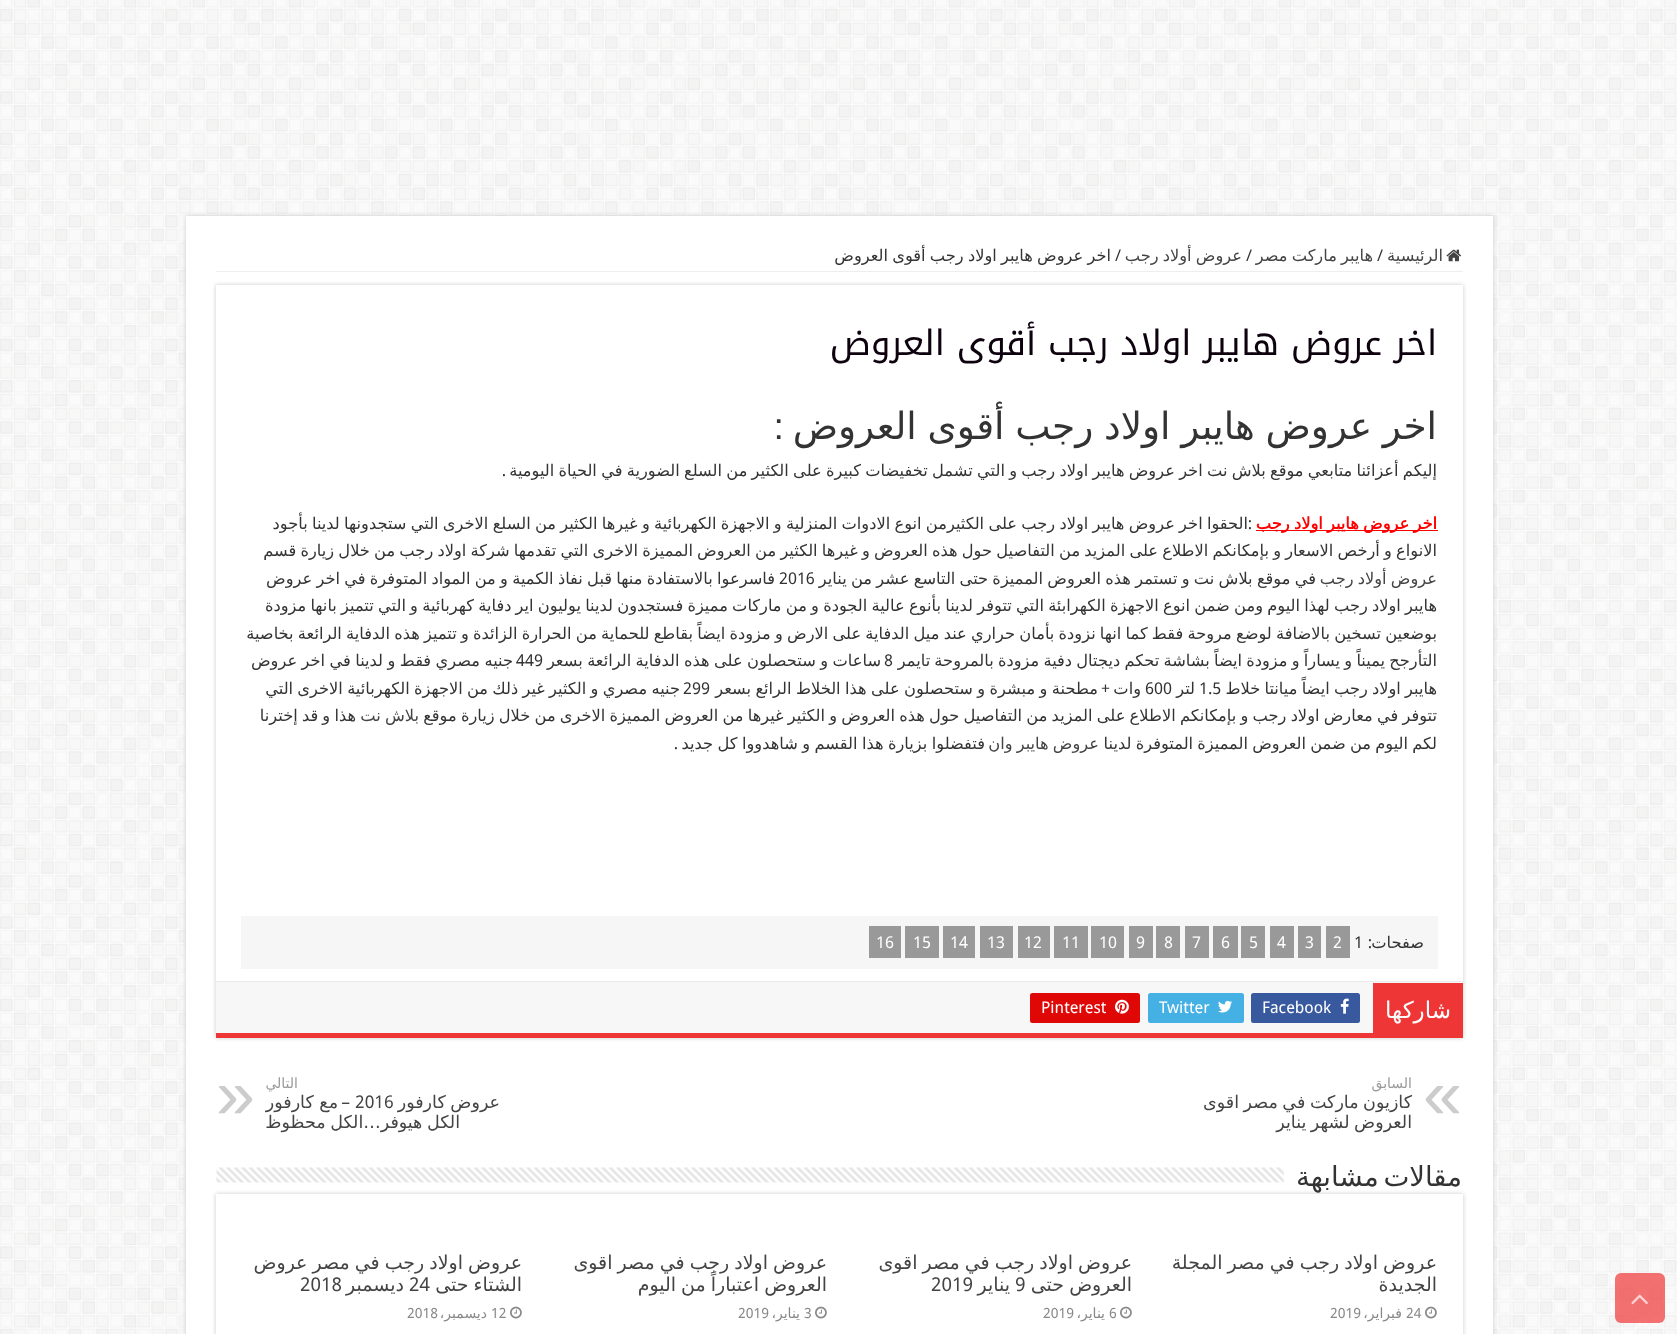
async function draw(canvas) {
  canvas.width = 1677;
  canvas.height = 1334;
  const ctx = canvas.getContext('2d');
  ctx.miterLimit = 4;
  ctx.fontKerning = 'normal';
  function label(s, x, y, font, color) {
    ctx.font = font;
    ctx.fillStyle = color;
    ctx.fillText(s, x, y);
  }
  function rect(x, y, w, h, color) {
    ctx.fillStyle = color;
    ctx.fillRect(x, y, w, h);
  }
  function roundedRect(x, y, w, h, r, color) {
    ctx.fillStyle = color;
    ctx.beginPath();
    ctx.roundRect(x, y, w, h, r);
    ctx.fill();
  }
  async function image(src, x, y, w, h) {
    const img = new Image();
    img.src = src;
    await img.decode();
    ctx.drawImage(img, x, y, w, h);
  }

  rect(0, 0, 1677, 1334, '#fff');
  await image('assets/img1.png', 0, 0, 1677, 1334);
  roundedRect(1615, 1273, 50, 50, 6, '#ef3636b3');
  await image('assets/img2.png', 1631, 1294, 17, 11);
  ctx.fillStyle = '#cacaca';
  ctx.filter = 'blur(2px)';
  ctx.beginPath();
  ctx.rect(186, 216, 1307, 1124);
  ctx.fill();
  ctx.filter = 'none';
  rect(186, 216, 1307, 1118, '#fff');
  rect(216, 271, 1247, 1, '#eee');
  await image('assets/img3.png', 1446, 249, 16, 13);
  ctx.direction = 'rtl';
  label('الرئيسية', 1443, 261, '16.25px DejaVu Sans', '#444');
  ctx.direction = 'ltr';
  label('/', 1377, 261, '16.25px Droid Sans', '#333');
  ctx.wordSpacing = '-0.95px';
  ctx.direction = 'rtl';
  label('هايبر ماركت مصر', 1373, 261, '16.25px DejaVu Sans', '#444');
  ctx.wordSpacing = '0px';
  ctx.direction = 'ltr';
  label('/', 1246, 261, '16.25px Droid Sans', '#333');
  ctx.wordSpacing = '-0.95px';
  ctx.direction = 'rtl';
  label('عروض أولاد رجب', 1242, 261, '16.25px DejaVu Sans', '#444');
  ctx.wordSpacing = '0px';
  ctx.direction = 'ltr';
  label('/', 1115, 261, '16.25px Droid Sans', '#333');
  ctx.wordSpacing = '-0.95px';
  ctx.direction = 'rtl';
  label('اخر عروض هايبر اولاد رجب أقوى العروض', 1111, 261, '16.25px DejaVu Sans', '#333');
  ctx.fillStyle = '#cacaca';
  ctx.filter = 'blur(2px)';
  ctx.beginPath();
  ctx.rect(216, 285, 1247, 753);
  ctx.fill();
  ctx.filter = 'none';
  rect(216, 285, 1247, 696, '#fff');
  rect(216, 1033, 1247, 5, '#ef3636');
  ctx.wordSpacing = '0px';
  label('اخر عروض هايبر اولاد رجب أقوى العروض', 1437, 355, '35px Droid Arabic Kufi', '#0d020d');
  ctx.wordSpacing = '-1.25px';
  label('اخر عروض هايبر اولاد رجب أقوى العروض', 1437, 439, '37.5px DejaVu Sans', '#333');
  ctx.wordSpacing = '0px';
  label(':', 784, 439, '37.5px Liberation Sans', '#333');
  ctx.wordSpacing = '-0.9px';
  label('إليكم أعزائنا متابعي موقع بلاش نت اخر عروض هايبر اولاد رجب و التي تشمل تخفيضات كبيرة على الكثير من السلع الضورية في الحياة اليومية', 1437, 476, '16.25px DejaVu Sans', '#333');
  ctx.wordSpacing = '0px';
  label('.', 506, 476, '16.25px Droid Sans', '#333');
  rect(1256, 530, 182, 1, '#f00');
  ctx.wordSpacing = '-0.95px';
  label('اخر عروض هايبر اولاد رجب', 1437, 529, 'bold 16.25px DejaVu Sans', '#f00');
  ctx.wordSpacing = '-0.9px';
  label('الحقوا اخر عروض هايبر اولاد رجب على الكثيرمن انوع الادوات المنزلية و الاجهزة الكهربائية و غيرها الكثير من السلع الاخرى التي ستجدونها لدينا بأجود', 1248, 529, '16.25px DejaVu Sans', '#333');
  ctx.wordSpacing = '0px';
  label(':', 1252, 529, '16.25px Droid Sans', '#333');
  ctx.wordSpacing = '-0.95px';
  label('الانواع و أرخص الاسعار و بإمكانكم الاطلاع على المزيد من التفاصيل حول هذه العروض و غيرها الكثير من العروض المميزة الاخرى التي تقدمها شركة اولاد رجب من خلال زيارة قسم', 1437, 556, '16.25px DejaVu Sans', '#333');
  label('عروض أولاد رجب', 1437, 584, '16.25px DejaVu Sans', '#444');
  ctx.wordSpacing = '-0.9px';
  label('في موقع بلاش نت و تستمر هذه العروض المميزة حتى التاسع عشر من يناير', 1316, 584, '16.25px DejaVu Sans', '#333');
  label('فاسرعوا بالاستفادة منها قبل نفاذ الكمية و من المواد المتوفرة في اخر عروض', 775, 584, '16.25px DejaVu Sans', '#333');
  ctx.wordSpacing = '0px';
  ctx.direction = 'ltr';
  label('2016', 779, 584, '16.25px Droid Sans', '#333');
  ctx.wordSpacing = '-0.95px';
  ctx.direction = 'rtl';
  label('هايبر اولاد رجب لهذا اليوم ومن ضمن انوع الاجهزة الكهرابئة التي تتوفر لدينا بأنوع عالية الجودة و من ماركات مميزة فستجدون لدينا يوليون اير دفاية كهربائية و التي تتميز بانها مزودة', 1437, 611, '16.25px DejaVu Sans', '#333');
  label('بوضعين تسخين بالاضافة لوضع مروحة فقط كما انها نزودة بأمان حراري عند ميل الدفاية على الارض و مزودة ايضاً بقاطع للحماية من الحرارة الزائدة و تتميز هذه الدفاية الرائعة بخاصية', 1437, 639, '16.25px DejaVu Sans', '#333');
  label('التأرجح يميناً و يساراً و مزودة ايضاً بشاشة تحكم ديجتال دفية مزودة بالمروحة تايمر', 1437, 666, '16.25px DejaVu Sans', '#333');
  ctx.wordSpacing = '-0.75px';
  label('ساعات و ستحصلون على هذه الدفاية الرائعة بسعر', 881, 666, '16.25px DejaVu Sans', '#333');
  ctx.wordSpacing = '0px';
  ctx.direction = 'ltr';
  label('8', 884, 666, '16.25px Droid Sans', '#333');
  ctx.wordSpacing = '-0.75px';
  ctx.direction = 'rtl';
  label('جنيه مصري فقط و لدينا في اخر عروض', 513, 666, '16.25px DejaVu Sans', '#333');
  ctx.wordSpacing = '0px';
  ctx.direction = 'ltr';
  label('449', 516, 666, '16.25px Droid Sans', '#333');
  ctx.wordSpacing = '-0.95px';
  ctx.direction = 'rtl';
  label('هايبر اولاد رجب ايضاً ميانتا خلاط', 1437, 694, '16.25px DejaVu Sans', '#333');
  ctx.wordSpacing = '0px';
  ctx.direction = 'ltr';
  label('1.5', 1199, 694, '16.25px Droid Sans', '#333');
  ctx.direction = 'rtl';
  label('لتر', 1195, 694, '16.25px DejaVu Sans', '#333');
  ctx.direction = 'ltr';
  label('600', 1145, 694, '16.25px Droid Sans', '#333');
  ctx.direction = 'rtl';
  label('وات', 1141, 694, '16.25px DejaVu Sans', '#333');
  ctx.wordSpacing = '-0.75px';
  label('مطحنة و مبشرة و ستحصلون على هذا الخلاط الرائع بسعر', 1098, 694, '16.25px DejaVu Sans', '#333');
  ctx.wordSpacing = '0px';
  label('+', 1110, 694, '16.25px Droid Sans', '#333');
  ctx.wordSpacing = '-0.9px';
  label('جنيه مصري و الكثير غير ذلك من الاجهزة الكهربائية الاخرى التي', 680, 694, '16.25px DejaVu Sans', '#333');
  ctx.wordSpacing = '0px';
  ctx.direction = 'ltr';
  label('299', 683, 694, '16.25px Droid Sans', '#333');
  ctx.wordSpacing = '-0.95px';
  ctx.direction = 'rtl';
  label('تتوفر في معارض اولاد رجب و بإمكانكم الاطلاع على المزيد من التفاصيل حول هذه العروض و الكثير غيرها من العروض المميزة الاخرى من خلال زيارة موقع', 1437, 721, '16.25px DejaVu Sans', '#333');
  label('بلاش نت', 419, 721, '16.25px DejaVu Sans', '#444');
  ctx.wordSpacing = '-1px';
  label('هذا و قد إخترنا', 356, 721, '16.25px DejaVu Sans', '#333');
  ctx.wordSpacing = '-0.95px';
  label('لكم اليوم من ضمن العروض المميزة المتوفرة لدينا', 1437, 749, '16.25px DejaVu Sans', '#333');
  label('عروض هايبر وان', 1099, 749, '16.25px DejaVu Sans', '#444');
  ctx.wordSpacing = '-0.75px';
  label('فتفضلوا بزيارة هذا القسم و شاهدووا كل جديد', 985, 749, '16.25px DejaVu Sans', '#333');
  ctx.wordSpacing = '0px';
  label('.', 678, 749, '16.25px Droid Sans', '#333');
  rect(241, 916, 1197, 53, '#f6f6f6');
  label('صفحات', 1424, 948, '16.25px DejaVu Sans', '#333');
  label(':', 1372, 948, '16.25px Droid Sans', '#333');
  ctx.direction = 'ltr';
  label('1', 1354, 948, '16.25px Droid Sans', '#333');
  rect(1326, 926, 24, 32, '#999');
  label('2', 1333, 948, '16.25px Droid Sans', '#fff');
  rect(1298, 926, 23, 32, '#999');
  label('3', 1305, 948, '16.25px Droid Sans', '#fff');
  rect(1270, 926, 24, 32, '#999');
  label('4', 1277, 948, '16.25px Droid Sans', '#fff');
  rect(1241, 926, 24, 32, '#999');
  label('5', 1249, 948, '16.25px Droid Sans', '#fff');
  rect(1213, 926, 25, 32, '#999');
  label('6', 1221, 948, '16.25px Droid Sans', '#fff');
  rect(1185, 926, 24, 32, '#999');
  label('7', 1192, 948, '16.25px Droid Sans', '#fff');
  rect(1156, 926, 24, 32, '#999');
  label('8', 1164, 948, '16.25px Droid Sans', '#fff');
  rect(1129, 926, 24, 32, '#999');
  label('9', 1136, 948, '16.25px Droid Sans', '#fff');
  rect(1091, 926, 33, 32, '#999');
  label('10', 1099, 948, '16.25px Droid Sans', '#fff');
  rect(1054, 926, 34, 32, '#999');
  label('11', 1062, 948, '16.25px Droid Sans', '#fff');
  rect(1018, 926, 32, 32, '#999');
  label('12', 1024, 948, '16.25px Droid Sans', '#fff');
  rect(980, 926, 33, 32, '#999');
  label('13', 987, 948, '16.25px Droid Sans', '#fff');
  rect(943, 926, 32, 32, '#999');
  label('14', 950, 948, '16.25px Droid Sans', '#fff');
  rect(905, 926, 34, 32, '#999');
  label('15', 913, 948, '16.25px Droid Sans', '#fff');
  rect(869, 926, 32, 32, '#999');
  label('16', 876, 948, '16.25px Droid Sans', '#fff');
  rect(216, 982, 1247, 51, '#f7f7f7');
  rect(216, 981, 1247, 1, '#eaeaea');
  rect(1373, 983, 90, 50, '#ef3636');
  ctx.direction = 'rtl';
  label('شاركها', 1451, 1018, '23px DejaVu Sans', '#fff');
  roundedRect(1251, 993, 109, 30, 2.5, '#39599f');
  await image('assets/img4.png', 1340, 998, 9, 16);
  ctx.direction = 'ltr';
  label('Facebook', 1262, 1013, '16.25px Droid Sans', '#fff');
  roundedRect(1148, 993, 96, 30, 2.5, '#45b0e3');
  await image('assets/img5.png', 1218, 1000, 14, 13);
  label('Twitter', 1159, 1013, '16.25px Droid Sans', '#fff');
  roundedRect(1030, 993, 110, 30, 2.5, '#e00707');
  await image('assets/img6.png', 1115, 999, 14, 15);
  label('Pinterest', 1041, 1013, '16.25px Droid Sans', '#fff');
  label('«', 1423, 1118, '70px Liberation Sans', '#ccc');
  ctx.direction = 'rtl';
  label('السابق', 1412, 1088, '14px DejaVu Sans', '#999');
  ctx.wordSpacing = '-1px';
  label('كازيون ماركت في مصر اقوى', 1412, 1108, '17.5px DejaVu Sans', '#444');
  label('العروض لشهر يناير', 1412, 1128, '17.5px DejaVu Sans', '#444');
  ctx.wordSpacing = '0px';
  label('التالي', 298, 1088, '14px DejaVu Sans', '#999');
  ctx.direction = 'ltr';
  label('»', 216, 1118, '70px Liberation Sans', '#ccc');
  ctx.wordSpacing = '-1px';
  ctx.direction = 'rtl';
  label('عروض كارفور', 500, 1108, '17.5px DejaVu Sans', '#444');
  ctx.wordSpacing = '0px';
  ctx.direction = 'ltr';
  label('2016', 355, 1108, '17.5px Droid Sans', '#444');
  ctx.direction = 'rtl';
  label('–', 350, 1108, '17.5px Droid Sans', '#444');
  label('مع كارفور', 338, 1108, '17.5px DejaVu Sans', '#444');
  ctx.wordSpacing = '-1px';
  label('الكل هيوفر…الكل محظوظ', 460, 1128, '17.5px DejaVu Sans', '#444');
  ctx.fillStyle = '#cacaca';
  ctx.filter = 'blur(2px)';
  ctx.beginPath();
  ctx.rect(216, 1194, 1247, 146);
  ctx.fill();
  ctx.filter = 'none';
  ctx.save();
  ctx.beginPath();
  ctx.rect(216, 1158, 1247, 36);
  ctx.clip();
  ctx.wordSpacing = '-4px';
  label('مقالات مشابهة', 1462, 1186, '27.5px DejaVu Sans', '#333');
  ctx.restore();
  await image('assets/img7.png', 216, 1167, 1068, 16);
  rect(216, 1194, 1247, 140, '#fff');
  label('عروض اولاد رجب في مصر المجلة', 1437, 1269, '19px DejaVu Sans', '#444');
  ctx.wordSpacing = '0px';
  label('الجديدة', 1437, 1291, '19px DejaVu Sans', '#444');
  await image('assets/img8.png', 1425, 1306, 12, 13);
  ctx.direction = 'ltr';
  label('24', 1406, 1318, '14px Droid Sans', '#888');
  ctx.direction = 'rtl';
  label('فبراير،', 1402, 1318, '14px DejaVu Sans', '#888');
  ctx.direction = 'ltr';
  label('2019', 1330, 1318, '14px Droid Sans', '#888');
  ctx.wordSpacing = '-1px';
  ctx.direction = 'rtl';
  label('عروض اولاد رجب في مصر اقوى', 1132, 1269, '19px DejaVu Sans', '#444');
  label('العروض حتى', 1132, 1291, '19px DejaVu Sans', '#444');
  ctx.wordSpacing = '0px';
  ctx.direction = 'ltr';
  label('9', 1015, 1291, '19px Droid Sans', '#444');
  ctx.direction = 'rtl';
  label('يناير', 1010, 1291, '19px DejaVu Sans', '#444');
  ctx.direction = 'ltr';
  label('2019', 931, 1291, '19px Droid Sans', '#444');
  await image('assets/img8.png', 1120, 1306, 12, 13);
  label('6', 1109, 1318, '14px Droid Sans', '#888');
  ctx.direction = 'rtl';
  label('يناير،', 1105, 1318, '14px DejaVu Sans', '#888');
  ctx.direction = 'ltr';
  label('2019', 1043, 1318, '14px Droid Sans', '#888');
  ctx.wordSpacing = '-1px';
  ctx.direction = 'rtl';
  label('عروض اولاد رجب في مصر اقوى', 827, 1269, '19px DejaVu Sans', '#444');
  label('العروض اعتباراً من اليوم', 827, 1291, '19px DejaVu Sans', '#444');
  await image('assets/img8.png', 815, 1306, 12, 13);
  ctx.wordSpacing = '0px';
  ctx.direction = 'ltr';
  label('3', 804, 1318, '14px Droid Sans', '#888');
  ctx.direction = 'rtl';
  label('يناير،', 800, 1318, '14px DejaVu Sans', '#888');
  ctx.direction = 'ltr';
  label('2019', 738, 1318, '14px Droid Sans', '#888');
  ctx.wordSpacing = '-1px';
  ctx.direction = 'rtl';
  label('عروض اولاد رجب في مصر عروض', 522, 1269, '19px DejaVu Sans', '#444');
  label('الشتاء حتى', 522, 1291, '19px DejaVu Sans', '#444');
  ctx.wordSpacing = '0px';
  ctx.direction = 'ltr';
  label('24', 409, 1291, '19px Droid Sans', '#444');
  ctx.direction = 'rtl';
  label('ديسمبر', 404, 1291, '19px DejaVu Sans', '#444');
  ctx.direction = 'ltr';
  label('2018', 300, 1291, '19px Droid Sans', '#444');
  await image('assets/img8.png', 510, 1306, 12, 13);
  label('12', 491, 1318, '14px Droid Sans', '#888');
  ctx.direction = 'rtl';
  label('ديسمبر،', 487, 1318, '14px DejaVu Sans', '#888');
  ctx.direction = 'ltr';
  label('2018', 407, 1318, '14px Droid Sans', '#888');
}

draw(document.querySelector('canvas'));
